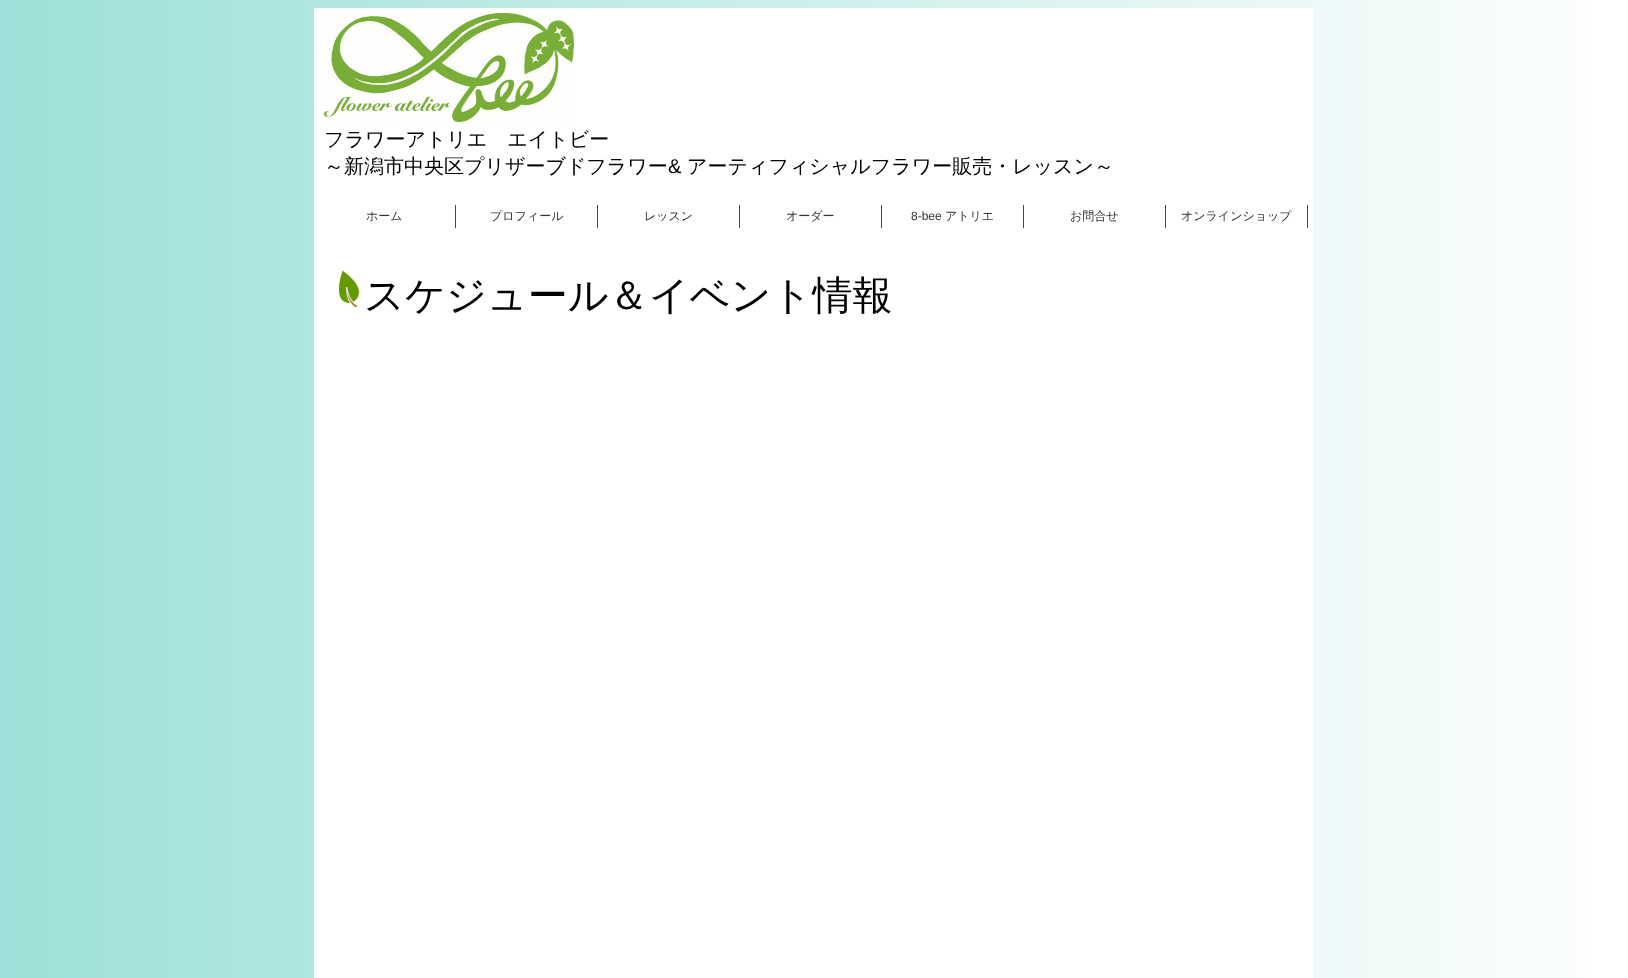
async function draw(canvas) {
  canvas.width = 1628;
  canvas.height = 978;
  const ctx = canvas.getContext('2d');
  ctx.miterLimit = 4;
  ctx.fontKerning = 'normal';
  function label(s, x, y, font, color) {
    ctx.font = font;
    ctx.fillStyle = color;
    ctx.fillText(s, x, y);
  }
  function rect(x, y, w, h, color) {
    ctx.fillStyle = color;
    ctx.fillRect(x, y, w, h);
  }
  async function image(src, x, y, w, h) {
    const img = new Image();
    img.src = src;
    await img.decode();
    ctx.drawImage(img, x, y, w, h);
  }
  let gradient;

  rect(0, 0, 1628, 978, '#fff');
  gradient = ctx.createLinearGradient(1628, 845, 0, 845);
  gradient.addColorStop(0, '#fff');
  gradient.addColorStop(1, '#9ee0d9');
  ctx.fillStyle = gradient;
  ctx.fillRect(0, 0, 1586, 978);
  rect(314, 8, 1000, 970, '#fff');
  await image('assets/img1.png', 324, 13, 250, 109);
  label('フラワーアトリエ　エイトビー', 324, 146, '500 20px WenQuanYi Zen Hei', '#000');
  label('～新潟市中央区プリザーブドフラワー', 324, 173, '500 20px WenQuanYi Zen Hei', '#000');
  label('&', 668, 173, '20px Liberation Sans', '#000');
  label('アーティフィシャルフラワー販売・レッスン～', 687, 173, '500 20px WenQuanYi Zen Hei', '#000');
  rect(455, 205, 1, 23, '#474655');
  label('ホーム', 366, 220, '500 12px WenQuanYi Zen Hei', '#333');
  rect(597, 205, 1, 23, '#474655');
  label('プロフィール', 490, 220, '500 12px WenQuanYi Zen Hei', '#333');
  rect(739, 205, 1, 23, '#474655');
  label('レッスン', 644, 220, '500 12px WenQuanYi Zen Hei', '#333');
  rect(881, 205, 1, 23, '#474655');
  label('オーダー', 786, 220, '500 12px WenQuanYi Zen Hei', '#333');
  rect(1023, 205, 1, 23, '#474655');
  label('8-bee', 911, 220, '12px Liberation Sans', '#333');
  label('アトリエ', 945, 220, '500 12px WenQuanYi Zen Hei', '#333');
  rect(1165, 205, 1, 23, '#474655');
  label('お問合せ', 1070, 220, '500 12px WenQuanYi Zen Hei', '#333');
  rect(1307, 205, 1, 23, '#474655');
  label('オンラインショップ', 1181, 220, '500 12px WenQuanYi Zen Hei', '#333');
  await image('assets/img2.png', 338, 270, 22, 38);
  label('スケジュール＆イベント情報', 364, 309, '500 40px WenQuanYi Zen Hei', '#000');
}

draw(document.querySelector('canvas'));
